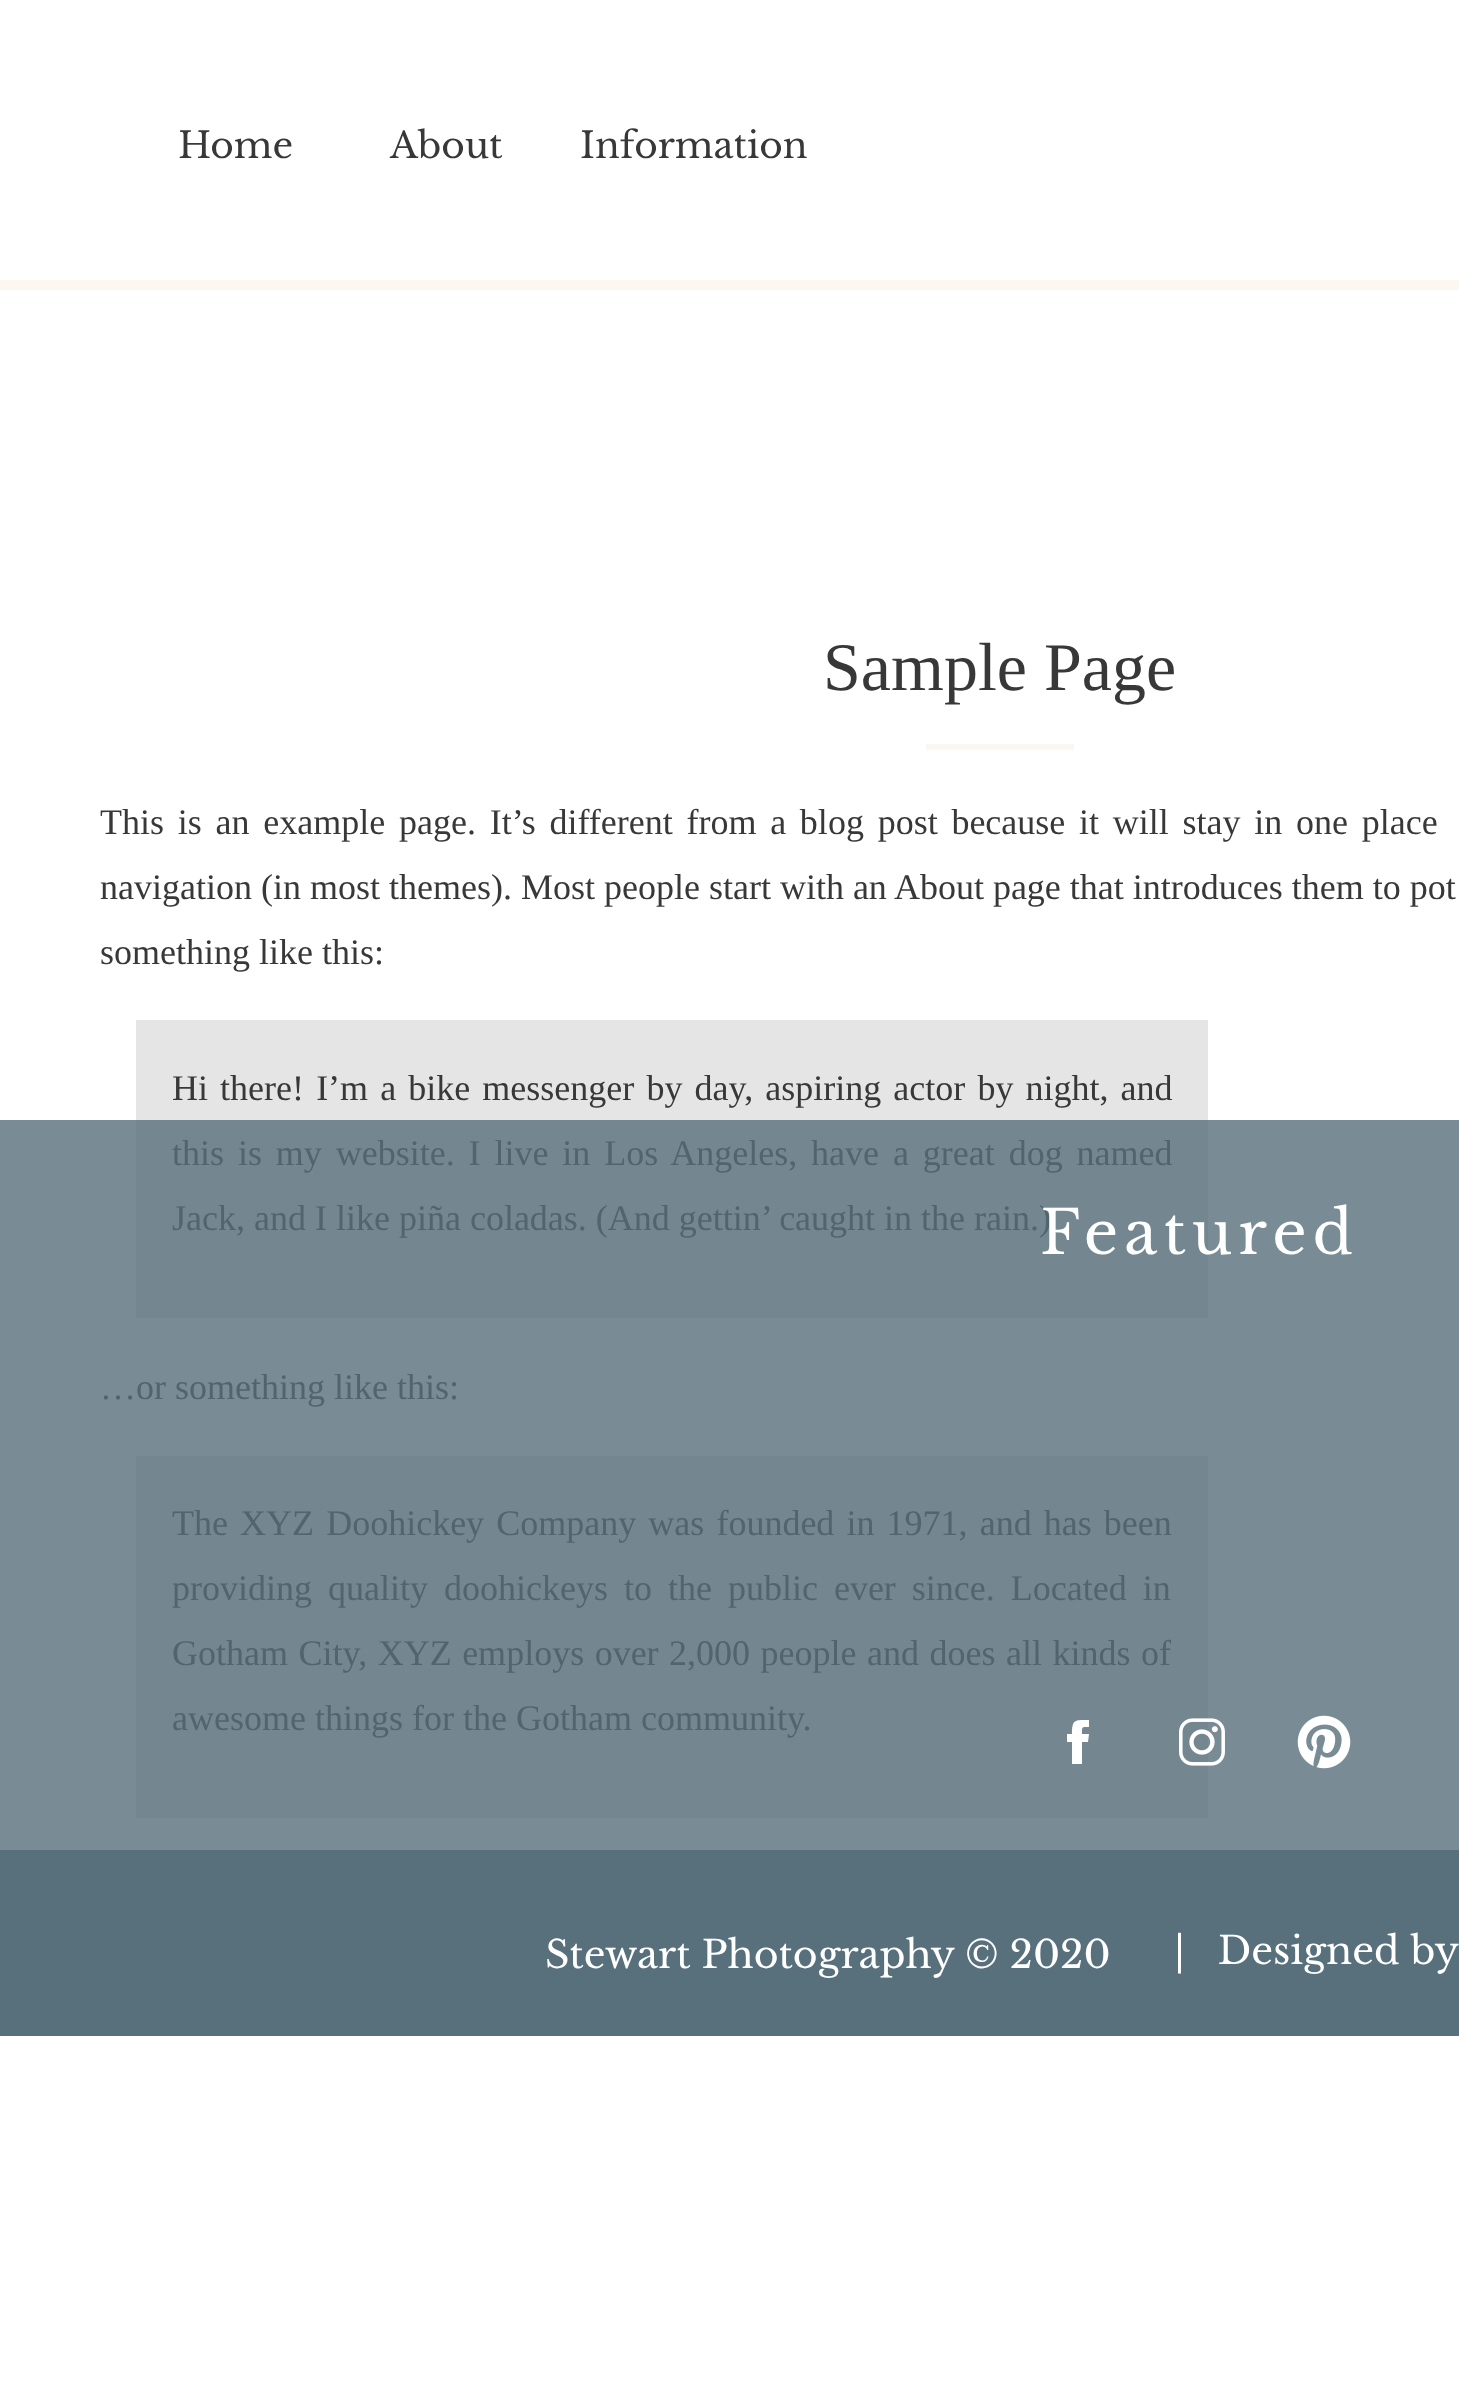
async function draw(canvas) {
  canvas.width = 1459;
  canvas.height = 2404;
  const ctx = canvas.getContext('2d');
  ctx.miterLimit = 4;
  ctx.fontKerning = 'normal';
  function label(s, x, y, font, color) {
    ctx.font = font;
    ctx.fillStyle = color;
    ctx.fillText(s, x, y);
  }
  function rect(x, y, w, h, color) {
    ctx.fillStyle = color;
    ctx.fillRect(x, y, w, h);
  }
  async function image(src, x, y, w, h) {
    const img = new Image();
    img.src = src;
    await img.decode();
    ctx.drawImage(img, x, y, w, h);
  }
  let path;

  rect(0, 0, 1459, 2404, '#fff');
  rect(0, 1120, 1459, 730, '#798c96');
  label('Home', 178, 158, '36px Libre Baskerville', '#383838');
  label('About', 390, 158, '36px Libre Baskerville', '#383838');
  label('Information', 580, 158, '36px Libre Baskerville', '#383838');
  rect(0, 280, 1459, 10, '#fcf8f1');
  label('Sample Page', 823, 690, '68px Liberation Serif', '#383838');
  rect(926, 744, 148, 6, '#fcf8f1');
  ctx.wordSpacing = '4.75px';
  label('This is an example page. It’s different from a blog post because it will stay in one place', 100, 834, '36px Liberation Serif', '#383838');
  ctx.wordSpacing = '0px';
  label('navigation (in most themes). Most people start with an About page that introduces them to pot', 100, 899, '36px Liberation Serif', '#383838');
  label('something like this:', 100, 964, '36px Liberation Serif', '#383838');
  rect(136, 1020, 1072, 100, '#e5e5e5');
  rect(136, 1120, 1072, 198, '#748791');
  ctx.wordSpacing = '3.1px';
  label('Hi there! I’m a bike messenger by day, aspiring actor by night, and', 172, 1100, '36px Liberation Serif', '#383838');
  ctx.wordSpacing = '4.9px';
  label('this is my website. I live in Los Angeles, have a great dog named', 172, 1165, '36px Liberation Serif', '#52646e');
  ctx.wordSpacing = '0px';
  label('Jack, and I like piña coladas. (And gettin’ caught in the rain.)', 172, 1230, '36px Liberation Serif', '#52646e');
  label('…or something like this:', 100, 1399, '36px Liberation Serif', '#52646e');
  rect(136, 1456, 1072, 362, '#748791');
  ctx.wordSpacing = '3.1px';
  label('The XYZ Doohickey Company was founded in 1971, and has been', 172, 1535, '36px Liberation Serif', '#52646e');
  ctx.wordSpacing = '7px';
  label('providing quality doohickeys to the public ever since. Located in', 172, 1600, '36px Liberation Serif', '#52646e');
  ctx.wordSpacing = '1.5px';
  label('Gotham City, XYZ employs over 2,000 people and does all kinds of', 172, 1665, '36px Liberation Serif', '#52646e');
  ctx.wordSpacing = '0px';
  label('awesome things for the Gotham community.', 172, 1730, '36px Liberation Serif', '#52646e');
  ctx.letterSpacing = '6px';
  label('Featured', 1040, 1254, '60px Libre Baskerville', '#fff');
  path = new Path2D('M1082 1734C1082 1727 1081 1727 1089 1727V1720C1075 1720 1072 1719 1072 1734H1067V1742H1072V1764H1082V1742H1088L1089 1734Z');
  ctx.fill(path);
  await image('assets/img1.png', 1179, 1718, 46, 48);
  await image('assets/img2.png', 1297, 1715, 54, 54);
  rect(0, 1850, 1459, 186, '#586f7c');
  ctx.letterSpacing = '0px';
  label('Stewart Photography © 2020', 545, 1968, '38px Libre Baskerville', '#fff');
  label('|   Designed by', 1174, 1964, '38px Libre Baskerville', '#fff');
}

draw(document.querySelector('canvas'));
